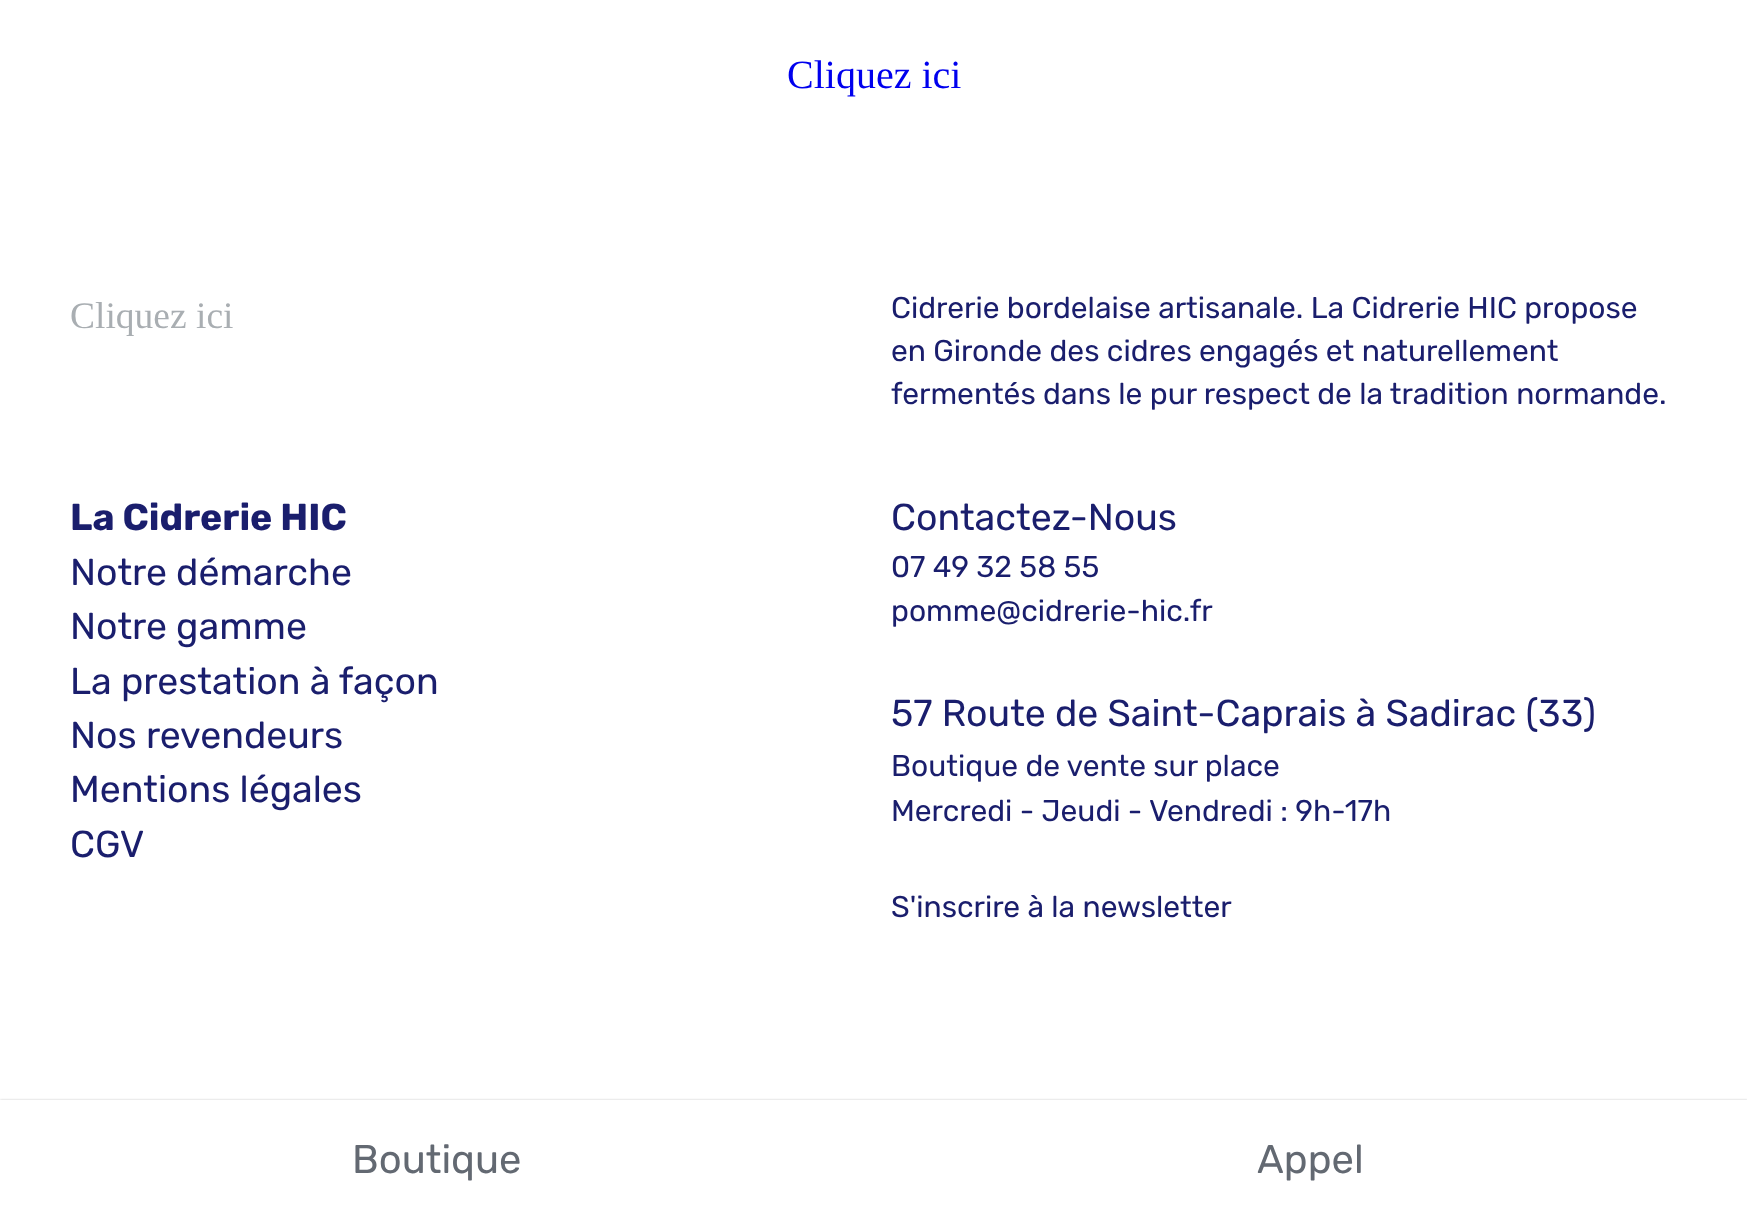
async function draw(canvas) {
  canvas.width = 1747;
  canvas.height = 1219;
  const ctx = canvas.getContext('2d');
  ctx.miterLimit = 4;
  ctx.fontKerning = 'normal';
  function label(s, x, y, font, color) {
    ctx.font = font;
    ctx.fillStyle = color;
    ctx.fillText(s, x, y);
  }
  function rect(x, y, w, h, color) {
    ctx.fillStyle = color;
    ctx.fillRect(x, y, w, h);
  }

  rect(0, 0, 1747, 1219, '#fff');
  label('Cliquez ici', 787, 88, '40px Liberation Serif', '#00e');
  label('Cliquez ici', 70, 328, '37.5px Liberation Serif', '#a9aeb2');
  label('Cidrerie bordelaise artisanale. La Cidrerie HIC propose', 891, 318, '30px Rubik', '#1a1e6d');
  label('en Gironde des cidres engagés et naturellement', 891, 361, '30px Rubik', '#1a1e6d');
  label('fermentés dans le pur respect de la tradition normande.', 891, 404, '30px Rubik', '#1a1e6d');
  label('La Cidrerie HIC', 70, 530, 'bold 37.5px Rubik', '#1a1e6d');
  label('Notre démarche', 70, 585, '37.5px Rubik', '#1a1e6d');
  label('Notre gamme', 70, 639, '37.5px Rubik', '#1a1e6d');
  label('La prestation à façon', 70, 694, '37.5px Rubik', '#1a1e6d');
  label('Nos revendeurs', 70, 748, '37.5px Rubik', '#1a1e6d');
  label('Mentions légales', 70, 802, '37.5px Rubik', '#1a1e6d');
  label('CGV', 70, 857, '37.5px Rubik', '#1a1e6d');
  label('Contactez-Nous', 891, 530, '37.5px Rubik', '#1a1e6d');
  label('07 49 32 58 55', 891, 577, '30px Rubik', '#1a1e6d');
  label('pomme@cidrerie-hic.fr', 891, 621, '30px Rubik', '#1a1e6d');
  label('57 Route de Saint-Caprais à Sadirac (33)', 891, 726, '37.5px Rubik', '#1a1e6d');
  label('Boutique de vente sur place', 891, 776, '30px Rubik', '#1a1e6d');
  label('Mercredi - Jeudi - Vendredi : 9h-17h', 891, 821, '30px Rubik', '#1a1e6d');
  label('S\'inscrire à la newsletter', 891, 917, '30px Rubik', '#1a1e6d');
  ctx.fillStyle = '#00000038';
  ctx.filter = 'blur(1px)';
  ctx.beginPath();
  ctx.rect(0, 1100, 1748, 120);
  ctx.fill();
  ctx.filter = 'none';
  rect(0, 1100, 1747, 119, '#fff');
  label('Boutique', 352, 1173, '40px Rubik', '#636972');
  label('Appel', 1257, 1173, '40px Rubik', '#636972');
}

draw(document.querySelector('canvas'));
